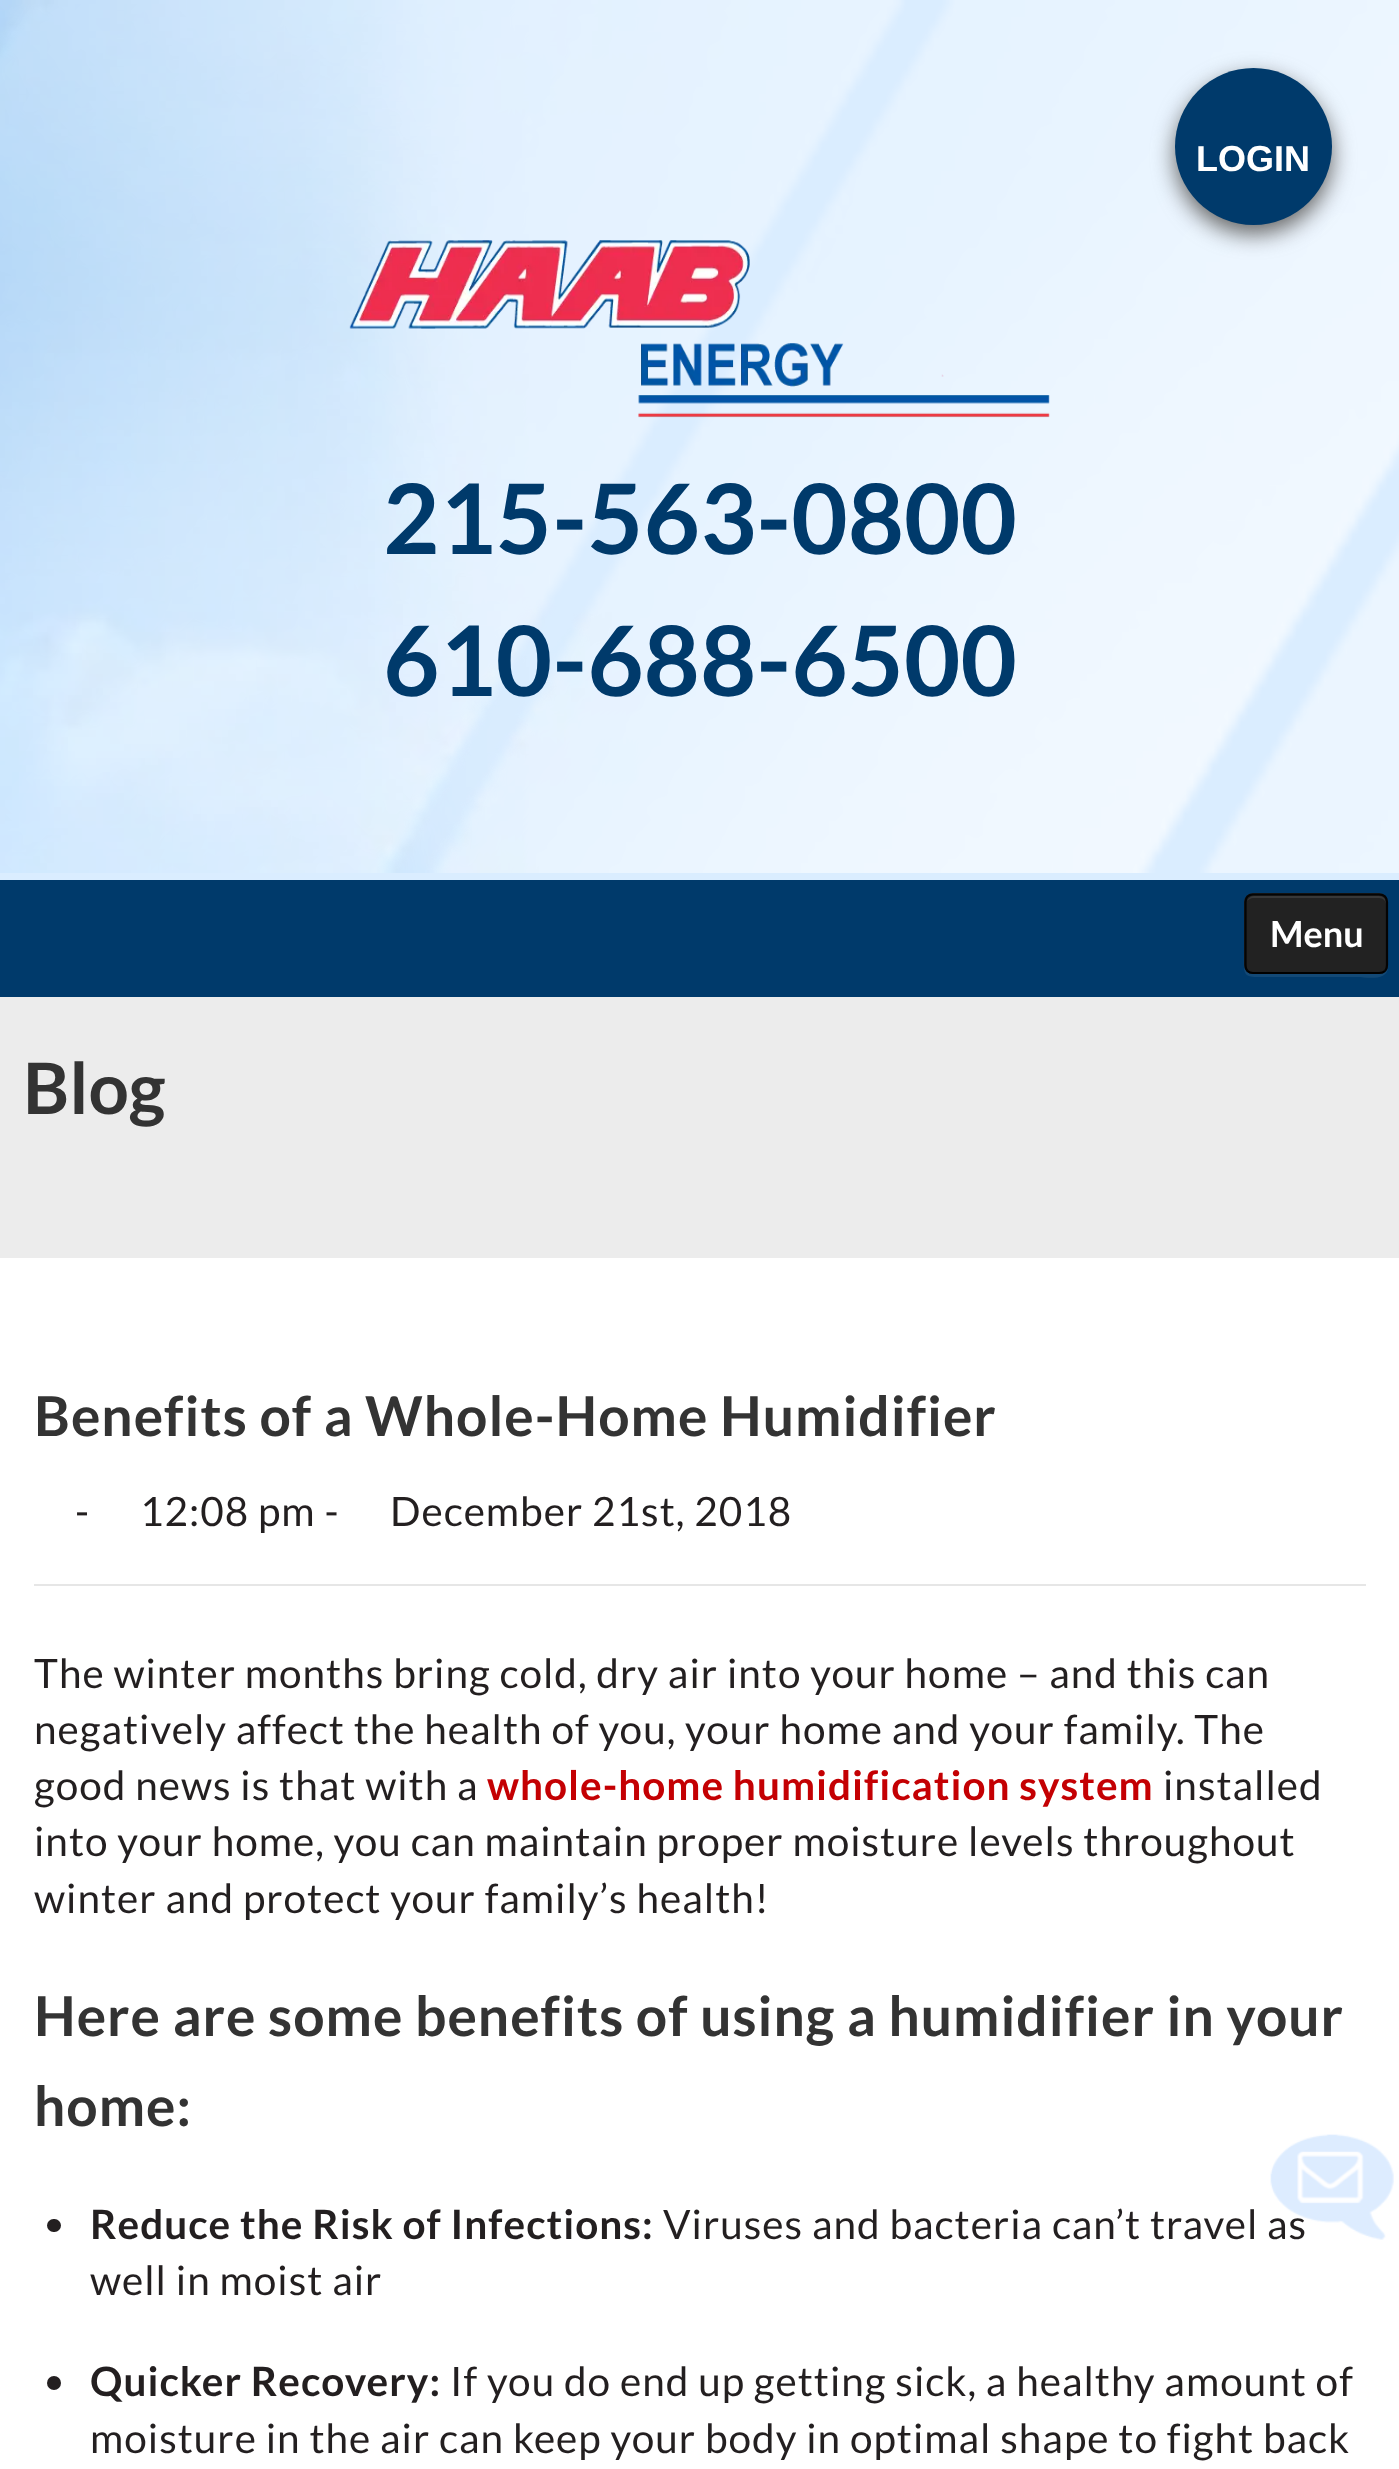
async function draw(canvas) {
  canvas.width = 1399;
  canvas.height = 2469;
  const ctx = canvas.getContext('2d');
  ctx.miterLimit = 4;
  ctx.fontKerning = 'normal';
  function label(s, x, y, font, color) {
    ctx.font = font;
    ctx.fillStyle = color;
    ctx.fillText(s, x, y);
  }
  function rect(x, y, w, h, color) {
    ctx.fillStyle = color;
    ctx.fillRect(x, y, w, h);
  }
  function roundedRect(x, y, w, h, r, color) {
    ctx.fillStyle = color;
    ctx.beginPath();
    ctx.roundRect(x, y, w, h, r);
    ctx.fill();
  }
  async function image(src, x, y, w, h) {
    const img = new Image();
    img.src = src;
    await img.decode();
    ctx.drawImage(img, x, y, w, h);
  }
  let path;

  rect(0, 0, 1399, 2469, '#fff');
  rect(0, 0, 1399, 880, '#daedff');
  await image('assets/img1.png', 0, 0, 1399, 873);
  ctx.fillStyle = '#666';
  ctx.filter = 'blur(11px)';
  ctx.beginPath();
  ctx.roundRect(1175, 77, 157, 157, 78.5);
  ctx.fill();
  ctx.filter = 'none';
  ctx.fillStyle = '#003a6b';
  ctx.beginPath();
  ctx.arc(1253.5, 146.5, 78.5, 0, 2 * Math.PI);
  ctx.fill();
  label('LOGIN', 1196, 171, 'bold 36px Liberation Sans', '#fff');
  await image('assets/img2.png', 349, 240, 701, 178);
  label('215-563-0800', 383, 554, 'bold 97.25px Lato', '#003a6b');
  label('610-688-6500', 383, 696, 'bold 97.25px Lato', '#003a6b');
  rect(0, 880, 1399, 117, '#003a6b');
  ctx.fillStyle = '#134976';
  path = new Path2D('M1244 903V947C1244 980 1240 977 1274 977H1358C1365 977 1388 982 1388 967C1387 971 1383 974 1379 974H1253C1248 974 1244 970 1244 965Z');
  ctx.fill(path);
  roundedRect(1244, 893, 144, 81, 9, '#222');
  ctx.fillStyle = '#383838';
  path = new Path2D('M1253 898H1379C1383 898 1386 901 1386 904V903C1386 899 1383 896 1379 896H1254C1251 896 1248 898 1247 901C1249 899 1251 898 1253 898Z');
  ctx.fill(path);
  path = new Path2D('M1385 971C1383.5 972.5 1381.5 973 1379 973H1253C1251 973 1249 972.5 1247.5 971');
  ctx.strokeStyle = '#000';
  ctx.lineWidth = 2.2;
  ctx.stroke(path);
  path = new Path2D('M1247.5 971C1246 969.5 1245.5 967.5 1245.5 965V902C1245.5 900 1246 898 1247.5 896.5C1249 895 1251 894.5 1253 894.5H1379C1381.5 894.5 1383.5 895 1385 896.5C1386.5 898 1387 900 1387 902V965C1387 967.5 1386.5 969.5 1385 971');
  ctx.strokeStyle = '#040404';
  ctx.stroke(path);
  label('Menu', 1270, 947, 'bold 36px Lato', '#fff');
  rect(0, 997, 1399, 261, '#ececec');
  label('Blog', 23, 1114, 'bold 71px Lato', '#333');
  ctx.letterSpacing = '1px';
  label('Benefits of a Whole-Home Humidifier', 34, 1436, 'bold 55.1px Lato', '#333');
  label('-', 75, 1526, '40.5px Lato', '#231f20');
  label('12:08 pm -', 140, 1526, '40.5px Lato', '#231f20');
  label('December 21st, 2018', 390, 1526, '40.5px Lato', '#231f20');
  rect(34, 1584, 1332, 2, '#e6e6e6');
  label('The winter months bring cold, dry air into your home – and this can', 34, 1688, '40.5px Lato', '#231f20');
  label('negatively affect the health of you, your home and your family. The', 34, 1744, '40.5px Lato', '#231f20');
  label('good news is that with a', 34, 1800, '40.5px Lato', '#231f20');
  label('whole-home humidification system', 487, 1800, 'bold 40.5px Lato', '#c40003');
  label('installed', 1163, 1800, '40.5px Lato', '#231f20');
  label('into your home, you can maintain proper moisture levels throughout', 34, 1856, '40.5px Lato', '#231f20');
  label('winter and protect your family’s health!', 34, 1913, '40.5px Lato', '#231f20');
  label('Here are some benefits of using a humidifier in your', 34, 2036, 'bold 55.1px Lato', '#333');
  label('home:', 34, 2126, 'bold 55.1px Lato', '#333');
  roundedRect(47, 2219, 14, 13, 6.5, '#231f20');
  label('Reduce the Risk of Infections:', 90, 2239, 'bold 40.5px Lato', '#231f20');
  label('Viruses and bacteria can’t travel as', 663, 2239, '40.5px Lato', '#231f20');
  label('well in moist air', 90, 2295, '40.5px Lato', '#231f20');
  ctx.beginPath();
  ctx.arc(54, 2383, 7, 0, 2 * Math.PI);
  ctx.fill();
  label('Quicker Recovery:', 90, 2396, 'bold 40.5px Lato', '#231f20');
  label('If you do end up getting sick, a healthy amount of', 450, 2396, '40.5px Lato', '#231f20');
  label('moisture in the air can keep your body in optimal shape to fight back', 90, 2453, '40.5px Lato', '#231f20');
  await image('assets/img3.png', 1270, 2134, 124, 106);
}

draw(document.querySelector('canvas'));
